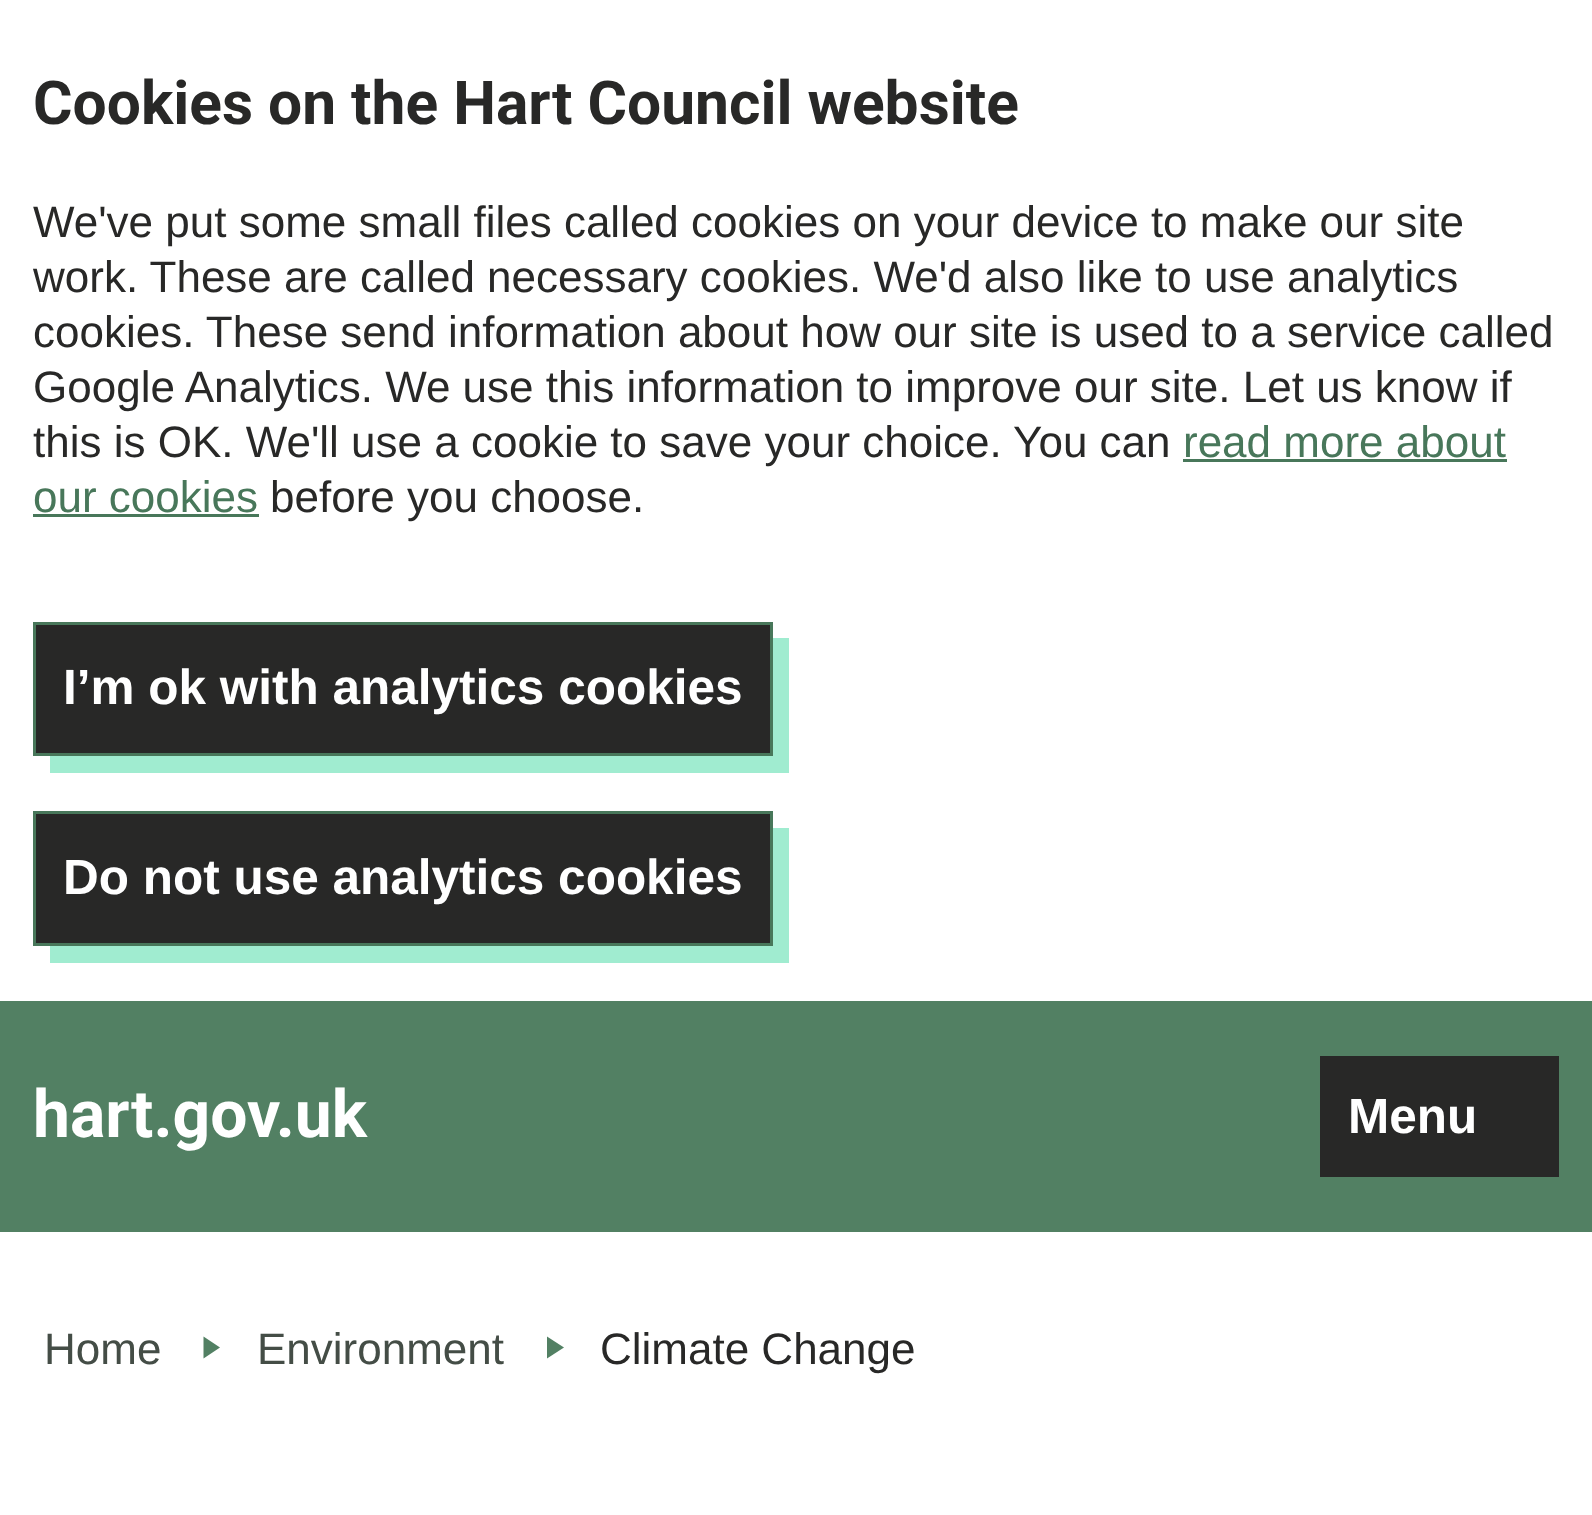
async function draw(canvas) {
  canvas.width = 1592;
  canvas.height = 1515;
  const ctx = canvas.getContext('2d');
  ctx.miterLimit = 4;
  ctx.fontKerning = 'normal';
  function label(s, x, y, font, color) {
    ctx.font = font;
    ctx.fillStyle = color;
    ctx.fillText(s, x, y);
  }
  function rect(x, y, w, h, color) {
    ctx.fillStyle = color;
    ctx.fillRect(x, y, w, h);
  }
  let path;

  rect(0, 0, 1592, 1515, '#fff');
  label('Cookies on the Hart Council website', 33, 124, 'bold 60.5px Roboto', '#282827');
  label('We\'ve put some small files called cookies on your device to make our site', 33, 237, '44px Liberation Sans', '#282827');
  label('work. These are called necessary cookies. We\'d also like to use analytics', 33, 292, '44px Liberation Sans', '#282827');
  label('cookies. These send information about how our site is used to a service called', 33, 347, '44px Liberation Sans', '#282827');
  label('Google Analytics. We use this information to improve our site. Let us know if', 33, 402, '44px Liberation Sans', '#282827');
  label('this is OK. We\'ll use a cookie to save your choice. You can', 33, 457, '44px Liberation Sans', '#282827');
  label('read more about', 1183, 457, '44px Liberation Sans', '#48775a');
  rect(1183, 459, 324, 3, '#48775a');
  label('our cookies', 33, 512, '44px Liberation Sans', '#48775a');
  rect(33, 514, 226, 3, '#48775a');
  label('before you choose.', 270, 512, '44px Liberation Sans', '#282827');
  ctx.fillStyle = '#a0ecd0';
  path = new Path2D('M50 756V773H789V638H773V756Z');
  ctx.fill(path);
  ctx.fillStyle = '#282827';
  ctx.beginPath();
  ctx.rect(34.5, 623.5, 737, 131);
  ctx.fill();
  ctx.strokeStyle = '#48775a';
  ctx.lineWidth = 3;
  ctx.stroke();
  label('I’m ok with analytics cookies', 63, 704, 'bold 49.5px Liberation Sans', '#fff');
  ctx.fillStyle = '#a0ecd0';
  path = new Path2D('M50 946V963H789V828H773V946Z');
  ctx.fill(path);
  ctx.fillStyle = '#282827';
  ctx.beginPath();
  ctx.rect(34.5, 812.5, 737, 132);
  ctx.fill();
  ctx.stroke();
  label('Do not use analytics cookies', 63, 894, 'bold 49.5px Liberation Sans', '#fff');
  rect(0, 1001, 1592, 231, '#528063');
  label('hart.gov.uk', 33, 1137, 'bold 66px Roboto', '#fff');
  rect(1320, 1056, 239, 121, '#282827');
  label('Menu', 1348, 1133, 'bold 49.5px Liberation Sans', '#fff');
  label('Home', 44, 1364, '44px Liberation Sans', '#444d46');
  ctx.fillStyle = '#528063';
  path = new Path2D('M203.5 1358.5V1336.5L220 1347.5Z');
  ctx.fill(path);
  label('Environment', 257, 1364, '44px Liberation Sans', '#444d46');
  ctx.fillStyle = '#528063';
  path = new Path2D('M547 1358.5V1336.5L564 1347.5Z');
  ctx.fill(path);
  label('Climate Change', 600, 1364, '44px Liberation Sans', '#282827');
}

draw(document.querySelector('canvas'));
